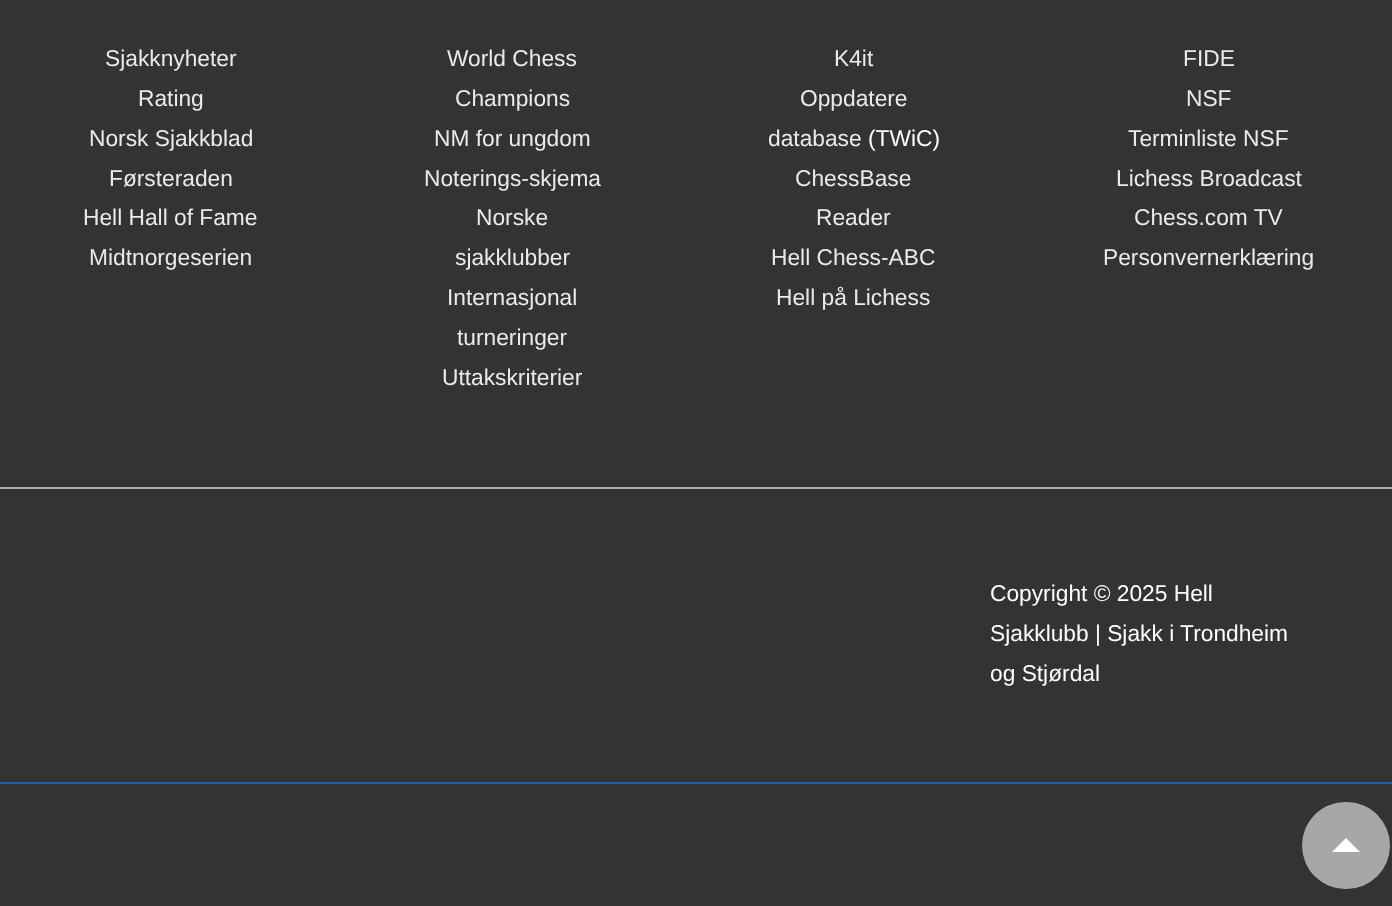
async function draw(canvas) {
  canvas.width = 1392;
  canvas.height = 906;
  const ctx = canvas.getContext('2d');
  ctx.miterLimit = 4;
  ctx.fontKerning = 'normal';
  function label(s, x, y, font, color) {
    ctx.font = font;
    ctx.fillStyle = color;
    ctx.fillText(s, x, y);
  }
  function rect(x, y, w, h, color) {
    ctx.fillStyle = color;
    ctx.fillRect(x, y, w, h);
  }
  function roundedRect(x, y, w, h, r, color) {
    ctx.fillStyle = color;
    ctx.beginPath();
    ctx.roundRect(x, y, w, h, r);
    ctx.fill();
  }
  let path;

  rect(0, 0, 1392, 906, '#333');
  label('Sjakknyheter', 105, 66, '22.75px Liberation Sans', '#eaeaea');
  label('Rating', 138, 106, '22.75px Liberation Sans', '#eaeaea');
  label('Norsk Sjakkblad', 89, 146, '22.75px Liberation Sans', '#eaeaea');
  label('Førsteraden', 109, 186, '22.75px Liberation Sans', '#eaeaea');
  label('Hell Hall of Fame', 83, 225, '22.75px Liberation Sans', '#eaeaea');
  label('Midtnorgeserien', 89, 265, '22.75px Liberation Sans', '#eaeaea');
  label('World Chess', 447, 66, '22.75px Liberation Sans', '#eaeaea');
  label('Champions', 455, 106, '22.75px Liberation Sans', '#eaeaea');
  label('NM for ungdom', 434, 146, '22.75px Liberation Sans', '#eaeaea');
  label('Noterings-skjema', 424, 186, '22.75px Liberation Sans', '#eaeaea');
  label('Norske', 476, 225, '22.75px Liberation Sans', '#eaeaea');
  label('sjakklubber', 455, 265, '22.75px Liberation Sans', '#eaeaea');
  label('Internasjonal', 447, 305, '22.75px Liberation Sans', '#eaeaea');
  label('turneringer', 457, 345, '22.75px Liberation Sans', '#eaeaea');
  label('Uttakskriterier', 442, 385, '22.75px Liberation Sans', '#eaeaea');
  label('K4it', 834, 66, '22.75px Liberation Sans', '#eaeaea');
  label('Oppdatere', 800, 106, '22.75px Liberation Sans', '#eaeaea');
  label('database', 768, 146, '22.75px Liberation Sans', '#eaeaea');
  label('(TWiC)', 868, 146, '22.75px Liberation Sans', '#fff');
  label('ChessBase', 795, 186, '22.75px Liberation Sans', '#eaeaea');
  label('Reader', 816, 225, '22.75px Liberation Sans', '#eaeaea');
  label('Hell Chess-ABC', 771, 265, '22.75px Liberation Sans', '#eaeaea');
  label('Hell på Lichess', 776, 305, '22.75px Liberation Sans', '#eaeaea');
  label('FIDE', 1183, 66, '22.75px Liberation Sans', '#eaeaea');
  label('NSF', 1186, 106, '22.75px Liberation Sans', '#eaeaea');
  label('Terminliste NSF', 1128, 146, '22.75px Liberation Sans', '#eaeaea');
  label('Lichess Broadcast', 1116, 186, '22.75px Liberation Sans', '#eaeaea');
  label('Chess.com TV', 1134, 225, '22.75px Liberation Sans', '#eaeaea');
  label('Personvernerklæring', 1103, 265, '22.75px Liberation Sans', '#eaeaea');
  rect(0, 487, 1392, 2, '#aaa');
  label('Copyright © 2025 Hell', 990, 601, '22.75px Liberation Sans', '#fff');
  label('Sjakklubb | Sjakk i Trondheim', 990, 641, '22.75px Liberation Sans', '#fff');
  label('og Stjørdal', 990, 681, '22.75px Liberation Sans', '#fff');
  rect(0, 782, 1392, 2, '#06c');
  roundedRect(1302, 802, 88, 87, 43.5, '#a8a6a6');
  ctx.fillStyle = '#fff';
  path = new Path2D('M1360 852H1332L1346 838Z');
  ctx.fill(path);
}

draw(document.querySelector('canvas'));
